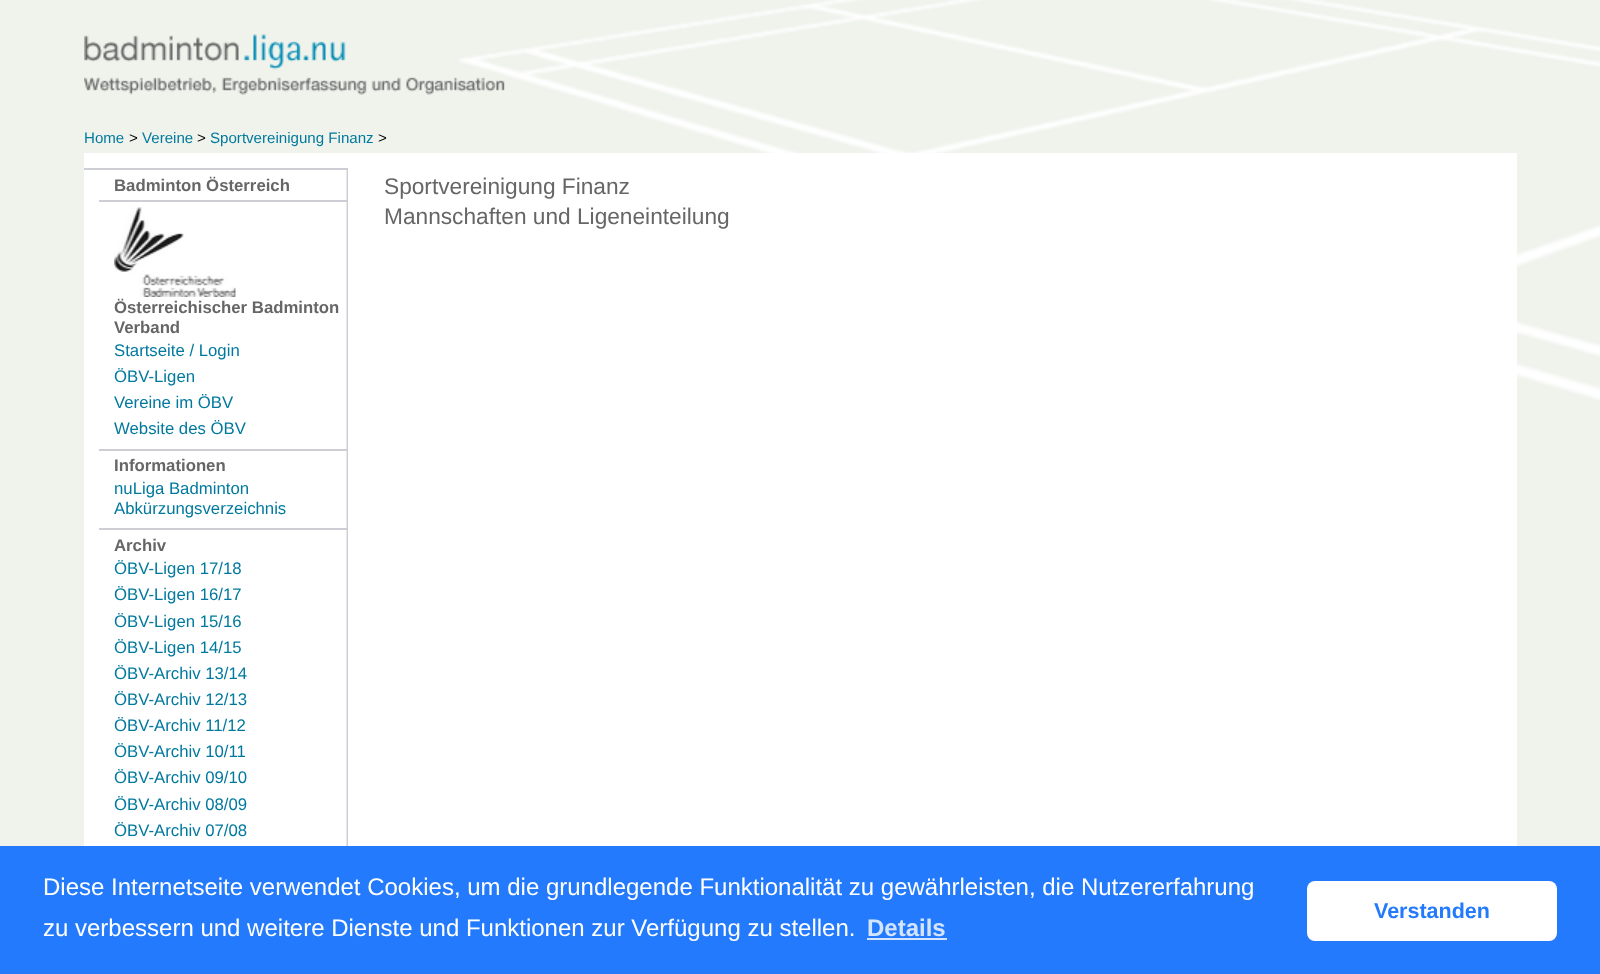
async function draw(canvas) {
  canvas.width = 1600;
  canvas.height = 974;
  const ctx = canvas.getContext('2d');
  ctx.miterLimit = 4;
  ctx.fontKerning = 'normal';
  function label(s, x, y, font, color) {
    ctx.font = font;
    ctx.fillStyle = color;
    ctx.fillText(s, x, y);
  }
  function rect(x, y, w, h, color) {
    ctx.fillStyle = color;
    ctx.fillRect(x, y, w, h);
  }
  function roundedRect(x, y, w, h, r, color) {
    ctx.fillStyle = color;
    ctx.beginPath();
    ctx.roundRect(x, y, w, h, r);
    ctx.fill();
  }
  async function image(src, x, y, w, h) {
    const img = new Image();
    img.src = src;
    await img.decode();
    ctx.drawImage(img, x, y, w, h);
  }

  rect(0, 0, 1600, 974, '#eff3ec');
  await image('assets/img1.png', 458, 0, 1142, 401);
  await image('assets/img2.png', 84, 34, 421, 61);
  label('Home', 84, 143, '15.1px Liberation Sans', '#01799e');
  label('>', 129, 143, '15.1px Liberation Sans', '#000');
  label('Vereine', 142, 143, '15.1px Liberation Sans', '#01799e');
  label('>', 197, 143, '15.1px Liberation Sans', '#000');
  label('Sportvereinigung Finanz', 210, 143, '15.1px Liberation Sans', '#01799e');
  label('>', 378, 143, '15.1px Liberation Sans', '#000');
  rect(84, 153, 1433, 693, '#fff');
  await image('assets/img3.png', 346, 168, 2, 678);
  rect(84, 168, 263, 2, '#cecfd6');
  label('Badminton Österreich', 114, 191, 'bold 16.75px Liberation Sans', '#666');
  rect(99, 200, 248, 2, '#cecfd6');
  await image('assets/img4.png', 114, 207, 122, 90);
  label('Österreichischer Badminton', 114, 313, 'bold 16.75px Liberation Sans', '#666');
  label('Verband', 114, 333, 'bold 16.75px Liberation Sans', '#666');
  label('Startseite / Login', 114, 356, '16.75px Liberation Sans', '#01799e');
  label('ÖBV-Ligen', 114, 382, '16.75px Liberation Sans', '#01799e');
  label('Vereine im ÖBV', 114, 408, '16.75px Liberation Sans', '#01799e');
  label('Website des ÖBV', 114, 434, '16.75px Liberation Sans', '#01799e');
  rect(99, 449, 248, 2, '#cecfd6');
  label('Informationen', 114, 471, 'bold 16.75px Liberation Sans', '#666');
  label('nuLiga Badminton', 114, 494, '16.75px Liberation Sans', '#01799e');
  label('Abkürzungsverzeichnis', 114, 514, '16.75px Liberation Sans', '#01799e');
  rect(99, 528, 248, 2, '#cecfd6');
  label('Archiv', 114, 551, 'bold 16.75px Liberation Sans', '#666');
  label('ÖBV-Ligen 17/18', 114, 574, '16.75px Liberation Sans', '#01799e');
  label('ÖBV-Ligen 16/17', 114, 600, '16.75px Liberation Sans', '#01799e');
  label('ÖBV-Ligen 15/16', 114, 627, '16.75px Liberation Sans', '#01799e');
  label('ÖBV-Ligen 14/15', 114, 653, '16.75px Liberation Sans', '#01799e');
  label('ÖBV-Archiv 13/14', 114, 679, '16.75px Liberation Sans', '#01799e');
  label('ÖBV-Archiv 12/13', 114, 705, '16.75px Liberation Sans', '#01799e');
  label('ÖBV-Archiv 11/12', 114, 731, '16.75px Liberation Sans', '#01799e');
  label('ÖBV-Archiv 10/11', 114, 757, '16.75px Liberation Sans', '#01799e');
  label('ÖBV-Archiv 09/10', 114, 783, '16.75px Liberation Sans', '#01799e');
  label('ÖBV-Archiv 08/09', 114, 810, '16.75px Liberation Sans', '#01799e');
  label('ÖBV-Archiv 07/08', 114, 836, '16.75px Liberation Sans', '#01799e');
  label('Sportvereinigung Finanz', 384, 194, '22.7px Liberation Sans', '#666');
  label('Mannschaften und Ligeneinteilung', 384, 224, '22.7px Liberation Sans', '#666');
  rect(0, 846, 1600, 128, '#237afc');
  label('Diese Internetseite verwendet Cookies, um die grundlegende Funktionalität zu gewährleisten, die Nutzererfahrung', 43, 895, '24px Liberation Sans', '#fff');
  label('zu verbessern und weitere Dienste und Funktionen zur Verfügung zu stellen.', 43, 936, '24px Liberation Sans', '#fff');
  label('Details', 867, 936, 'bold 24px Liberation Sans', '#d3e4fe');
  rect(867, 938, 80, 2, '#d3e4fe');
  roundedRect(1307, 881, 250, 60, 8, '#fff');
  label('Verstanden', 1374, 918, 'bold 21.5px Liberation Sans', '#237afc');
}

draw(document.querySelector('canvas'));
